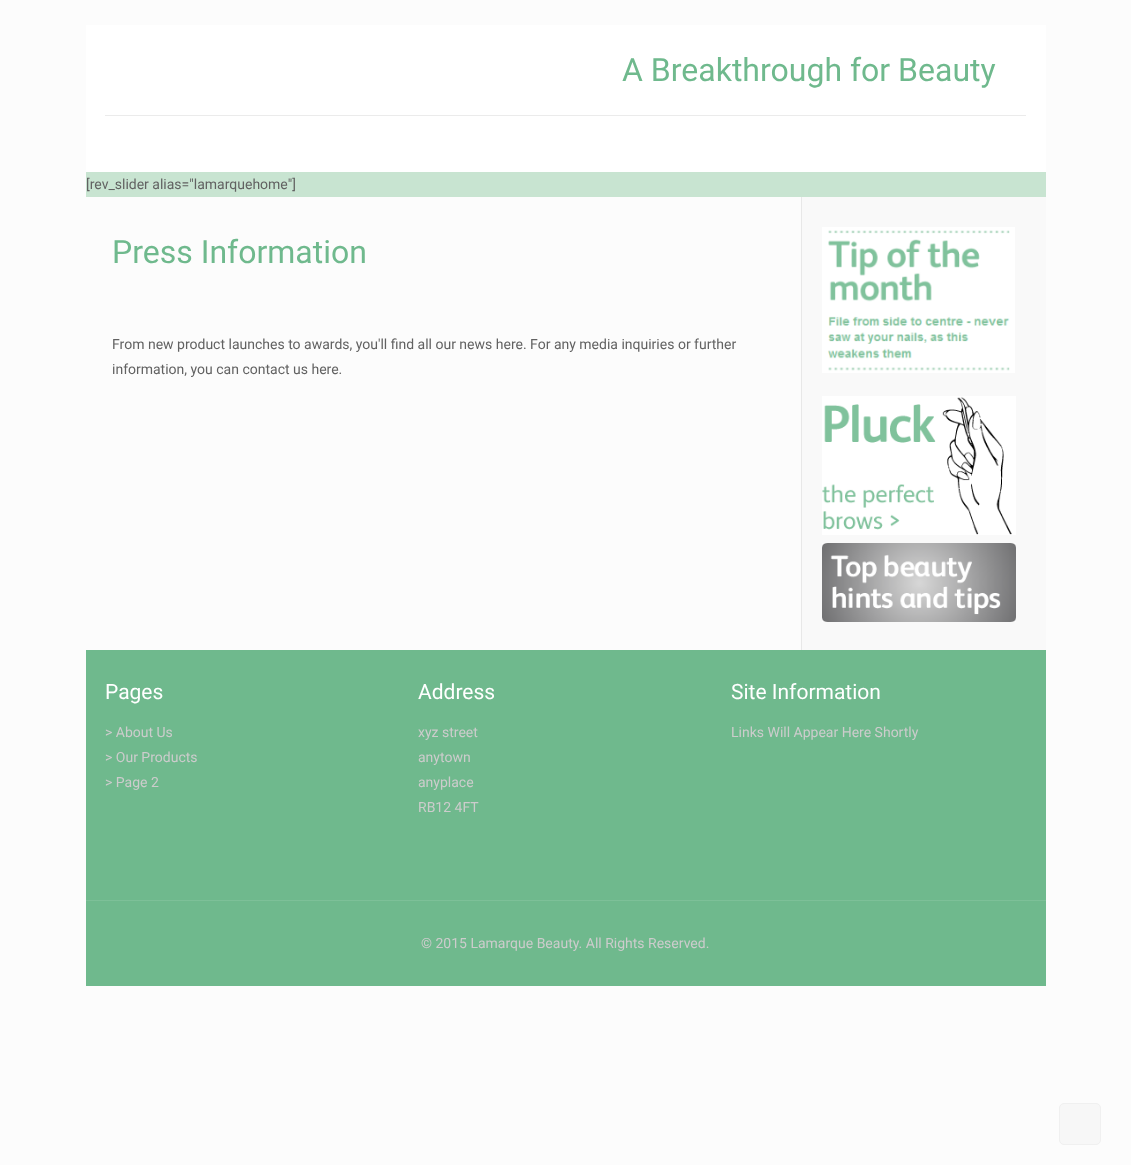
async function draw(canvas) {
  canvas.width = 1131;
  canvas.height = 1165;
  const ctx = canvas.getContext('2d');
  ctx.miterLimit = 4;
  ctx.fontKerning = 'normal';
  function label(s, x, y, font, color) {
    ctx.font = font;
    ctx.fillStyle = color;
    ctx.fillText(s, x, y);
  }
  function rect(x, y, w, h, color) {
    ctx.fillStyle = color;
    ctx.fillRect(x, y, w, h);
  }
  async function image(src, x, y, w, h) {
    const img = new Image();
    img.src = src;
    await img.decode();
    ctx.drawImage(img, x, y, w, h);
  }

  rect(0, 0, 1131, 1165, '#fcfcfc');
  rect(86, 172, 960, 25, '#c8e4d1');
  rect(86, 25, 960, 147, '#fff');
  rect(105, 115, 921, 1, '#ebebeb');
  label('A Breakthrough for Beauty', 622, 81, '32px Roboto', '#6fb98d');
  label('[rev_slider alias="lamarquehome"]', 86, 189, '14px Roboto', '#626262');
  label('Press Information', 112, 263, '32px Roboto', '#6fb98d');
  label('From new product launches to awards, you\'ll find all our news here. For any media inquiries or further', 112, 349, '14px Roboto', '#626262');
  label('information, you can contact us here.', 112, 374, '14px Roboto', '#626262');
  rect(801, 197, 1, 453, '#e8e8e8');
  rect(802, 197, 244, 453, '#f9f9f9');
  await image('assets/img1.png', 822, 227, 193, 146);
  await image('assets/img2.png', 822, 396, 194, 139);
  await image('assets/img3.png', 822, 543, 194, 79);
  rect(86, 650, 960, 336, '#6fb98d');
  label('Pages', 105, 699, '21px Roboto', '#fff');
  label('> About Us', 105, 737, '14px Roboto', '#ccc');
  label('> Our Products', 105, 762, '14px Roboto', '#ccc');
  label('> Page 2', 105, 787, '14px Roboto', '#ccc');
  label('Address', 418, 699, '21px Roboto', '#fff');
  label('xyz street', 418, 737, '14px Roboto', '#ccc');
  label('anytown', 418, 762, '14px Roboto', '#ccc');
  label('anyplace', 418, 787, '14px Roboto', '#ccc');
  label('RB12 4FT', 418, 812, '14px Roboto', '#ccc');
  label('Site Information', 731, 699, '21px Roboto', '#fff');
  label('Links Will Appear Here Shortly', 731, 737, '14px Roboto', '#ccc');
  rect(86, 900, 960, 1, '#7dc098');
  label('© 2015 Lamarque Beauty. All Rights Reserved.', 421, 948, '14px Roboto', '#ccc');
  ctx.fillStyle = '#f7f7f7';
  ctx.beginPath();
  ctx.roundRect(1059.5, 1103.5, 41, 41, 4.5);
  ctx.fill();
  ctx.strokeStyle = '#f0f0f0';
  ctx.stroke();
}

draw(document.querySelector('canvas'));
